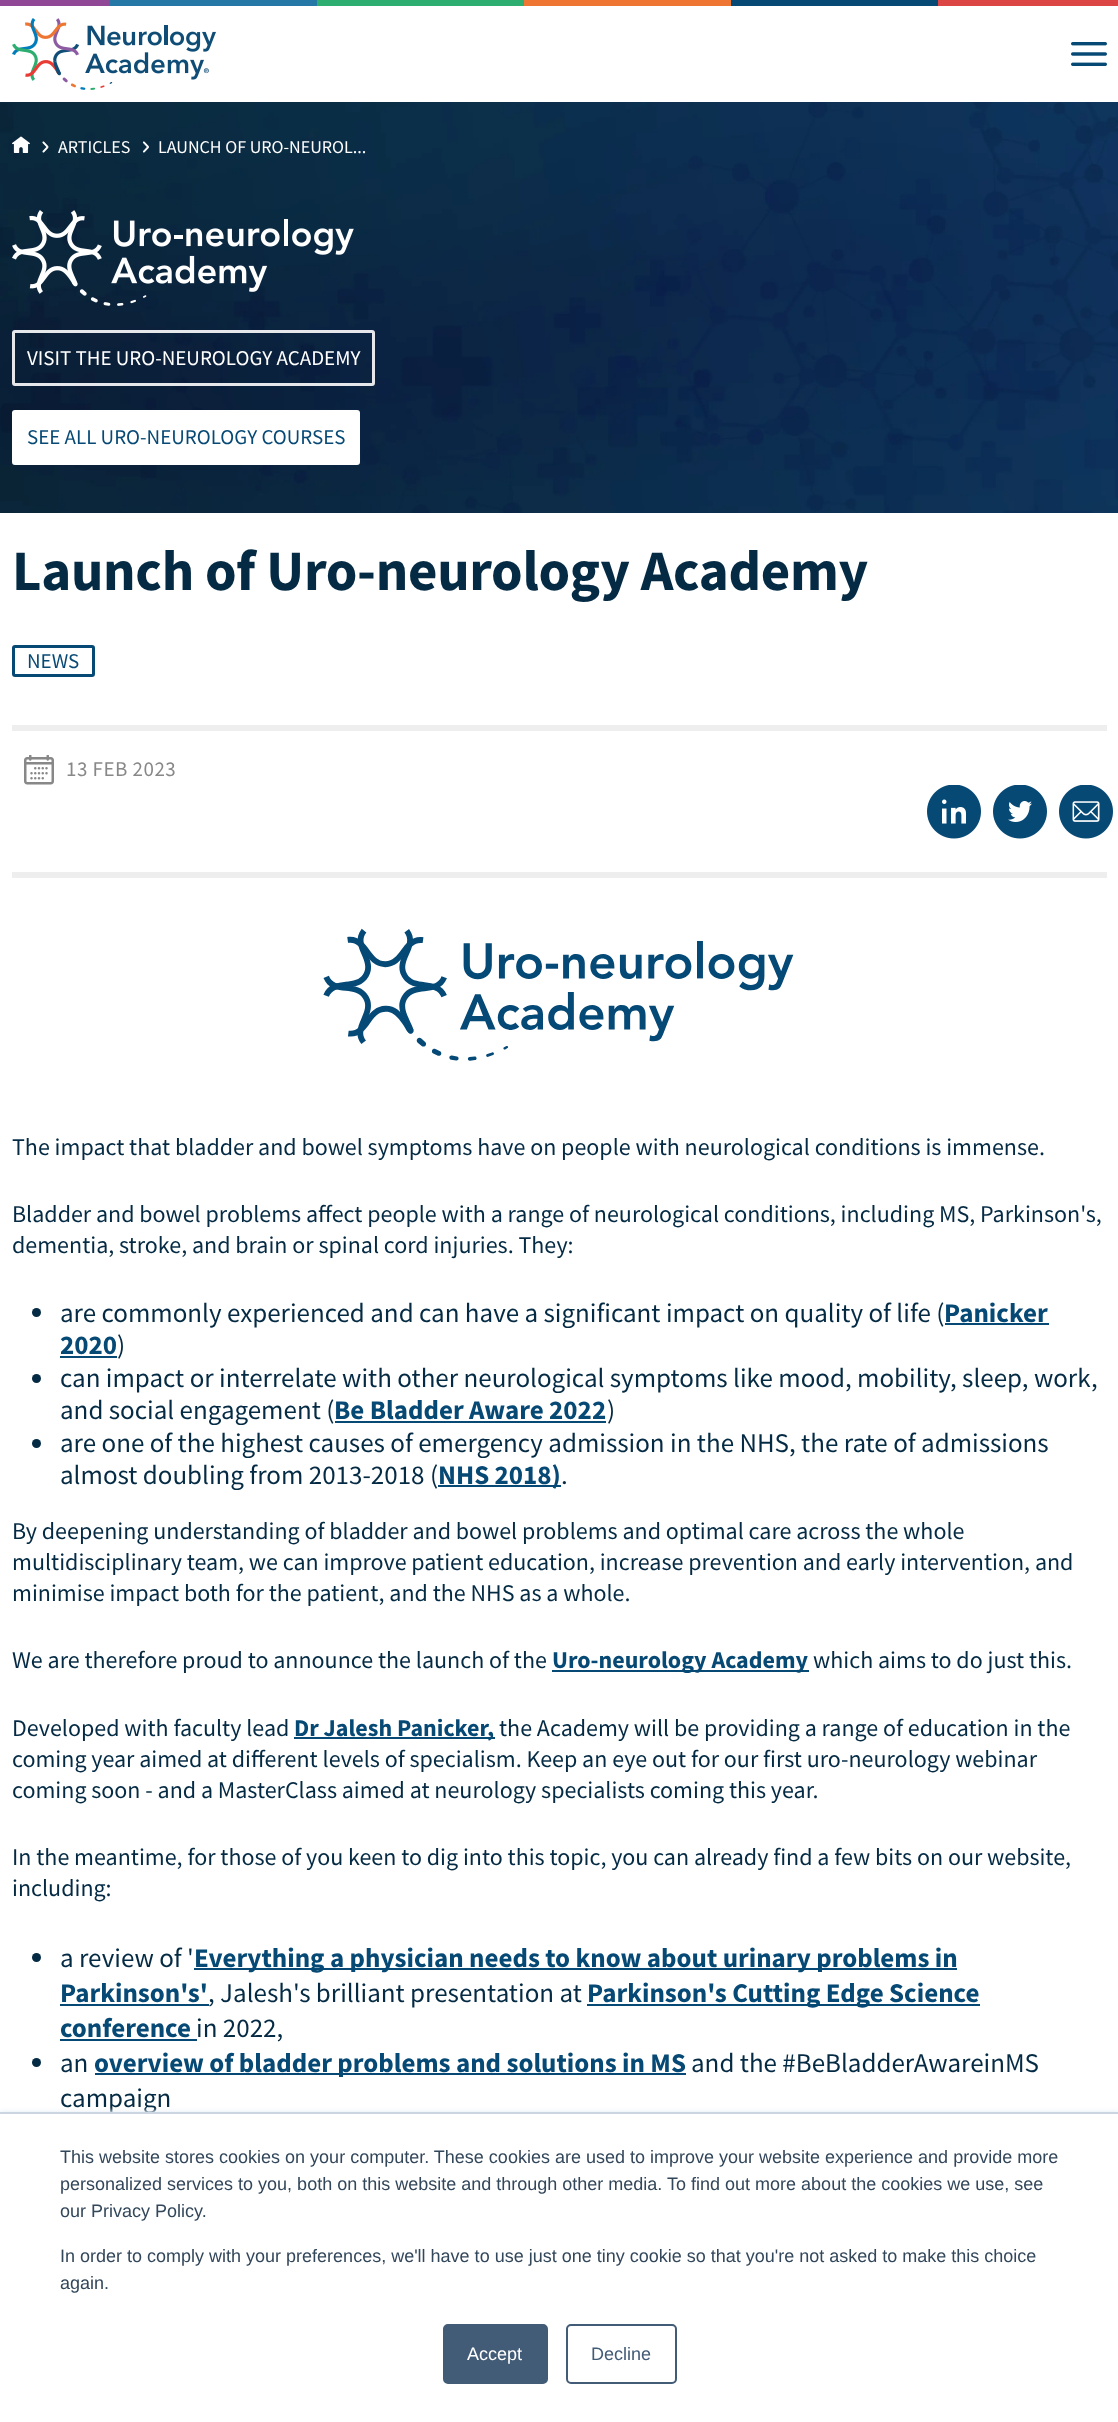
async function draw(canvas) {
  canvas.width = 1118;
  canvas.height = 2422;
  const ctx = canvas.getContext('2d');
  ctx.miterLimit = 4;
  ctx.fontKerning = 'normal';
  function label(s, x, y, font, color) {
    ctx.font = font;
    ctx.fillStyle = color;
    ctx.fillText(s, x, y);
  }
  function rect(x, y, w, h, color) {
    ctx.fillStyle = color;
    ctx.fillRect(x, y, w, h);
  }
  async function image(src, x, y, w, h) {
    const img = new Image();
    img.src = src;
    await img.decode();
    ctx.drawImage(img, x, y, w, h);
  }

  rect(0, 0, 1118, 2422, '#fff');
  rect(731, 0, 207, 6, '#074975');
  rect(938, 0, 180, 6, '#db4644');
  rect(0, 0, 110, 6, '#904896');
  rect(110, 0, 207, 6, '#2577a6');
  rect(317, 0, 207, 6, '#2dad6f');
  rect(524, 0, 207, 6, '#ef7632');
  await image('assets/img1.png', 12, 18, 204, 72);
  await image('assets/img2.png', 1071, 42, 36, 24);
  await image('assets/img3.png', 0, 102, 1118, 411);
  await image('assets/img4.png', 12, 136, 18, 17);
  await image('assets/img5.png', 42, 141, 7, 12);
  label('ARTICLES', 58, 153, '18px Source Sans Pro', '#fff');
  await image('assets/img6.png', 143, 141, 6, 12);
  label('LAUNCH OF URO-NEUROL...', 158, 153, '18px Source Sans Pro', '#fff');
  await image('assets/img7.png', 12, 210, 342, 96);
  ctx.beginPath();
  ctx.roundRect(13.5, 331.5, 360, 53, 1.5);
  ctx.strokeStyle = '#e5e7eb';
  ctx.lineWidth = 3;
  ctx.stroke();
  label('VISIT THE URO-NEUROLOGY ACADEMY', 27, 365, '21px Source Sans Pro', '#fff');
  ctx.beginPath();
  ctx.roundRect(13.5, 411.5, 345, 52, 1.5);
  ctx.fill();
  ctx.strokeStyle = '#fff';
  ctx.stroke();
  label('SEE ALL URO-NEUROLOGY COURSES', 27, 444, '21px Source Sans Pro', '#074975');
  ctx.letterSpacing = '-0.3px';
  label('Launch of Uro-neurology Academy', 12, 590, 'bold 57px Source Sans Pro', '#052b44');
  ctx.beginPath();
  ctx.roundRect(13.5, 646.5, 80, 29, 1.5);
  ctx.strokeStyle = '#074975';
  ctx.stroke();
  ctx.letterSpacing = '0px';
  label('NEWS', 27, 668, '21px Source Sans Pro', '#074975');
  rect(12, 725, 1095, 6, '#eee');
  await image('assets/img8.png', 24, 755, 30, 30);
  ctx.letterSpacing = '0.5px';
  label('13 FEB 2023', 66, 776, '21px Source Sans Pro', '#888');
  await image('assets/img9.png', 927, 785, 54, 54);
  await image('assets/img10.png', 993, 785, 54, 54);
  await image('assets/img11.png', 1059, 785, 54, 54);
  rect(12, 872, 1095, 6, '#eee');
  await image('assets/img12.png', 323, 928, 471, 133);
  ctx.letterSpacing = '0px';
  label('The impact that bladder and bowel symptoms have on people with neurological conditions is immense.', 12, 1155, '24px Source Sans Pro', '#052b44');
  label('Bladder and bowel problems affect people with a range of neurological conditions, including MS, Parkinson\'s,', 12, 1222, '24px Source Sans Pro', '#052b44');
  label('dementia, stroke, and brain or spinal cord injuries. They:', 12, 1253, '24px Source Sans Pro', '#052b44');
  ctx.beginPath();
  ctx.arc(36.5, 1312.5, 4.5, 0, 2 * Math.PI);
  ctx.fill();
  label('are commonly experienced and can have a significant impact on quality of life (', 60, 1322, '27px Source Sans Pro', '#052b44');
  label('Panicker', 944, 1322, 'bold 27px Source Sans Pro', '#074975');
  rect(945, 1323, 104, 2, '#074975');
  label('2020', 60, 1354, 'bold 27px Source Sans Pro', '#074975');
  rect(60, 1356, 57, 2, '#074975');
  label(')', 117, 1354, '27px Source Sans Pro', '#052b44');
  ctx.beginPath();
  ctx.arc(36.5, 1378.5, 4.5, 0, 2 * Math.PI);
  ctx.fill();
  label('can impact or interrelate with other neurological symptoms like mood, mobility, sleep, work,', 60, 1387, '27px Source Sans Pro', '#052b44');
  label('and social engagement (', 60, 1419, '27px Source Sans Pro', '#052b44');
  label('Be Bladder Aware 2022', 334, 1419, 'bold 27px Source Sans Pro', '#074975');
  rect(335, 1421, 271, 2, '#074975');
  label(')', 607, 1419, '27px Source Sans Pro', '#052b44');
  ctx.beginPath();
  ctx.arc(36.5, 1443.5, 4.5, 0, 2 * Math.PI);
  ctx.fill();
  label('are one of the highest causes of emergency admission in the NHS, the rate of admissions', 60, 1452, '27px Source Sans Pro', '#052b44');
  label('almost doubling from 2013-2018 (', 60, 1484, '27px Source Sans Pro', '#052b44');
  rect(438, 1485, 123, 2, '#074975');
  label('NHS 2018)', 438, 1484, 'bold 27px Source Sans Pro', '#074975');
  label('.', 561, 1484, '27px Source Sans Pro', '#052b44');
  label('By deepening understanding of bladder and bowel problems and optimal care across the whole', 12, 1539, '24px Source Sans Pro', '#052b44');
  label('multidisciplinary team, we can improve patient education, increase prevention and early intervention, and', 12, 1570, '24px Source Sans Pro', '#052b44');
  label('minimise impact both for the patient, and the NHS as a whole.', 12, 1601, '24px Source Sans Pro', '#052b44');
  label('We are therefore proud to announce the launch of the', 12, 1668, '24px Source Sans Pro', '#052b44');
  rect(552, 1670, 257, 2, '#074975');
  label('Uro-neurology Academy', 552, 1668, 'bold 24px Source Sans Pro', '#074975');
  label('which aims to do just this.', 813, 1668, '24px Source Sans Pro', '#052b44');
  label('Developed with faculty lead', 12, 1736, '24px Source Sans Pro', '#052b44');
  rect(294, 1737, 201, 2, '#074975');
  label('Dr Jalesh Panicker,', 294, 1736, 'bold 24px Source Sans Pro', '#074975');
  label('the Academy will be providing a range of education in the', 499, 1736, '24px Source Sans Pro', '#052b44');
  label('coming year aimed at different levels of specialism. Keep an eye out for our first uro-neurology webinar', 12, 1767, '24px Source Sans Pro', '#052b44');
  label('coming soon - and a MasterClass aimed at neurology specialists coming this year.', 12, 1798, '24px Source Sans Pro', '#052b44');
  label('In the meantime, for those of you keen to dig into this topic, you can already find a few bits on our website,', 12, 1865, '24px Source Sans Pro', '#052b44');
  label('including:', 12, 1896, '24px Source Sans Pro', '#052b44');
  ctx.beginPath();
  ctx.arc(36.5, 1957.5, 4.5, 0, 2 * Math.PI);
  ctx.fill();
  label('a review of \'', 60, 1967, '27px Source Sans Pro', '#052b44');
  rect(194, 1968, 763, 2, '#074975');
  label('Everything a physician needs to know about urinary problems in', 194, 1967, 'bold 27px Source Sans Pro', '#074975');
  label('Parkinson\'s\'', 60, 2002, 'bold 27px Source Sans Pro', '#074975');
  rect(60, 2004, 149, 2, '#074975');
  label(', Jalesh\'s brilliant presentation at', 208, 2002, '27px Source Sans Pro', '#052b44');
  rect(587, 2004, 393, 2, '#074975');
  label('Parkinson\'s Cutting Edge Science', 587, 2002, 'bold 27px Source Sans Pro', '#074975');
  label('conference', 60, 2037, 'bold 27px Source Sans Pro', '#074975');
  rect(60, 2039, 137, 2, '#074975');
  label('in 2022,', 196, 2037, '27px Source Sans Pro', '#052b44');
  ctx.beginPath();
  ctx.arc(36.5, 2062.5, 4.5, 0, 2 * Math.PI);
  ctx.fill();
  label('an', 60, 2072, '27px Source Sans Pro', '#052b44');
  rect(95, 2073, 591, 2, '#074975');
  label('overview of bladder problems and solutions in MS', 94, 2072, 'bold 27px Source Sans Pro', '#074975');
  label('and the #BeBladderAwareinMS', 691, 2072, '27px Source Sans Pro', '#052b44');
  label('campaign', 60, 2107, '27px Source Sans Pro', '#052b44');
  ctx.fillStyle = '#eaf0f6';
  ctx.filter = 'blur(2px)';
  ctx.beginPath();
  ctx.rect(0, 2111, 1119, 310);
  ctx.fill();
  ctx.filter = 'none';
  rect(0, 2114, 1118, 308, '#fff');
  rect(0, 2112, 1118, 2, '#cbd6e2');
  label('This website stores cookies on your computer. These cookies are used to improve your website experience and provide more', 60, 2163, '18px Liberation Sans', '#33475b');
  label('personalized services to you, both on this website and through other media. To find out more about the cookies we use, see', 60, 2190, '18px Liberation Sans', '#33475b');
  label('our Privacy Policy.', 60, 2217, '18px Liberation Sans', '#33475b');
  label('In order to comply with your preferences, we\'ll have to use just one tiny cookie so that you\'re not asked to make this choice', 60, 2262, '18px Liberation Sans', '#33475b');
  label('again.', 60, 2289, '18px Liberation Sans', '#33475b');
  ctx.fillStyle = '#425b76';
  ctx.beginPath();
  ctx.roundRect(444, 2325, 103, 58, 4);
  ctx.fill();
  ctx.strokeStyle = '#425b76';
  ctx.lineWidth = 2;
  ctx.stroke();
  label('Accept', 467, 2360, '18px Liberation Sans', '#fff');
  ctx.beginPath();
  ctx.roundRect(567, 2325, 109, 58, 4);
  ctx.stroke();
  label('Decline', 591, 2360, '18px Liberation Sans', '#425b76');
}

draw(document.querySelector('canvas'));
